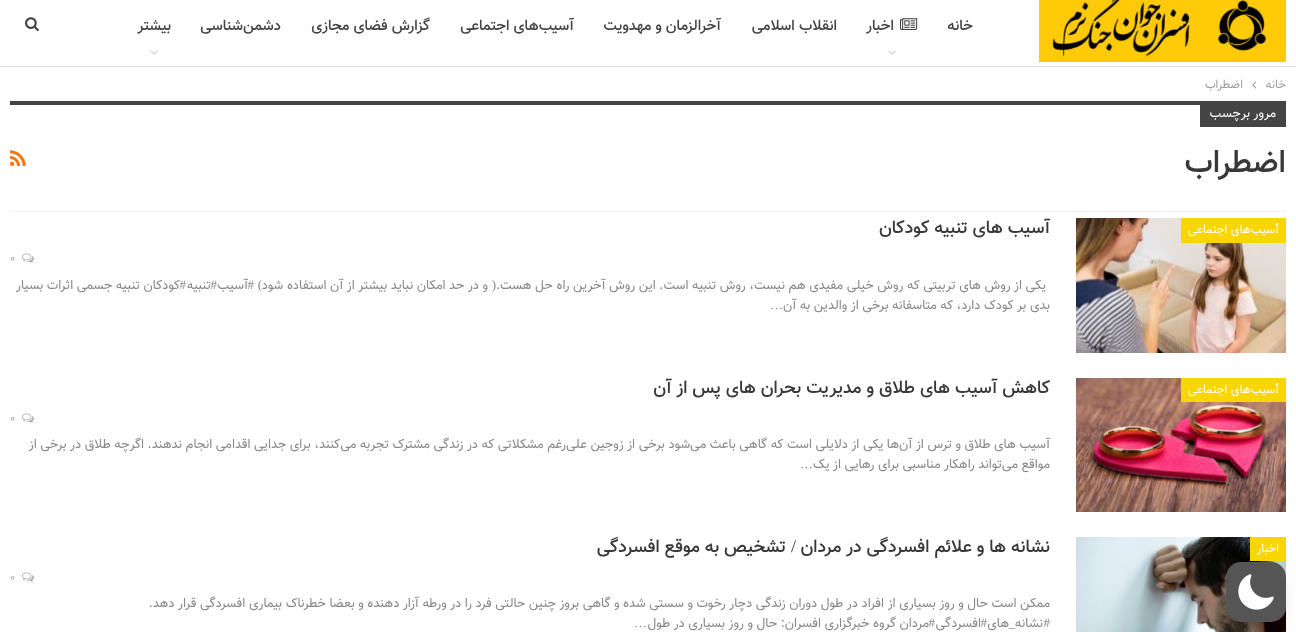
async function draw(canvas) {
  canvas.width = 1296;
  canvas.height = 632;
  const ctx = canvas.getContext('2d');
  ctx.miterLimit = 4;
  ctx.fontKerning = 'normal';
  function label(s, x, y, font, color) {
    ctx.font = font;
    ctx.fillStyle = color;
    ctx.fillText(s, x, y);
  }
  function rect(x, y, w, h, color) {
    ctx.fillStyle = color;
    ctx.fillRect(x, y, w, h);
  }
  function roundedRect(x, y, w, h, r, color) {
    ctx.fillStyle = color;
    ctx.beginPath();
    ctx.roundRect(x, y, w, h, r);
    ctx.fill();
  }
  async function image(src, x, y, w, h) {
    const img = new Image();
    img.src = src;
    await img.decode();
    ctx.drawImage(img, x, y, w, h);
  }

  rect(0, 0, 1296, 632, '#fff');
  rect(0, 66, 1296, 1, '#dedede');
  await image('assets/img1.png', 1039, 0, 247, 62);
  ctx.direction = 'rtl';
  label('خانه', 973, 30, '500 15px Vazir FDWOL', '#444');
  await image('assets/img2.png', 900, 18, 18, 12);
  label('اخبار', 894, 30, '500 15px Vazir FDWOL', '#444');
  await image('assets/img3.png', 888, 50, 8, 5);
  label('انقلاب اسلامی', 837, 30, '500 15px Vazir FDWOL', '#444');
  label('آخرالزمان و مهدویت', 721, 30, '500 15px Vazir FDWOL', '#444');
  label('آسیب‌های اجتماعی', 574, 30, '500 15px Vazir FDWOL', '#444');
  label('گزارش فضای مجازی', 430, 30, '500 15px Vazir FDWOL', '#444');
  label('دشمن‌شناسی', 281, 30, '500 15px Vazir FDWOL', '#444');
  label('بیشتر', 171, 30, '500 15px Vazir FDWOL', '#444');
  await image('assets/img3.png', 150, 50, 8, 5);
  await image('assets/img4.png', 25, 17, 14, 15);
  label('خانه', 1286, 88, '12px Vazir FDWOL', '#9e9e9e');
  await image('assets/img5.png', 1252, 81, 5, 8);
  label('اضطراب', 1243, 88, '12px Vazir FDWOL', '#9e9e9e');
  rect(10, 211, 1276, 1, '#f0f0f0');
  rect(10, 101, 1190, 4, '#444');
  rect(1200, 101, 86, 26, '#444');
  label('مرور برچسب', 1276, 117, '13px Vazir FDWOL', '#fff');
  label('اضطراب', 1286, 172, '500 32px Vazir FDWOL', '#383838');
  await image('assets/img6.png', 10, 150, 16, 16);
  await image('assets/img7.png', 1076, 218, 210, 135);
  rect(1181, 218, 105, 25, '#f9d501');
  label('آسیب‌های اجتماعی', 1279, 233, '12px Vazir FDWOL', '#fff');
  label('آسیب های تنبیه کودکان', 1050, 233, '500 18px Vazir FDWOL', '#383838');
  await image('assets/img8.png', 22, 253, 12, 10);
  ctx.direction = 'ltr';
  label('0', 10, 262, '12px Vazir FDWOL', '#adb5bd');
  ctx.direction = 'rtl';
  label('یکی از روش های تربیتی که روش خیلی مفیدی هم نیست، روش تنبیه است. این روش آخرین راه حل هست.', 1046, 289, '13px Vazir FDWOL', '#888');
  label('(', 496, 289, '13px Liberation Serif', '#888');
  label('و در حد امکان نباید بیشتر از آن استفاده شود', 488, 289, '13px Vazir FDWOL', '#888');
  label(')', 262, 289, '13px Liberation Serif', '#888');
  label('آسیب', 248, 289, '13px Vazir FDWOL', '#888');
  label('#', 254, 289, '13px Liberation Serif', '#888');
  label('تنبیه', 211, 289, '13px Vazir FDWOL', '#888');
  label('#', 217, 289, '13px Liberation Serif', '#888');
  label('#', 186, 289, '13px Liberation Serif', '#888');
  label('کودکان', 180, 289, '13px Vazir FDWOL', '#888');
  label('تنبیه جسمی اثرات بسیار', 140, 289, '13px Vazir FDWOL', '#888');
  label('بدی بر کودک دارد، که متاسفانه برخی از والدین به آن', 1050, 309, '13px Vazir FDWOL', '#888');
  ctx.direction = 'ltr';
  label('…', 770, 309, '13px Liberation Serif', '#888');
  await image('assets/img9.png', 1076, 378, 210, 134);
  rect(1181, 378, 105, 24, '#f9d501');
  ctx.direction = 'rtl';
  label('آسیب‌های اجتماعی', 1279, 393, '12px Vazir FDWOL', '#fff');
  label('کاهش آسیب های طلاق و مدیریت بحران های پس از آن', 1050, 393, '500 18px Vazir FDWOL', '#383838');
  await image('assets/img8.png', 22, 413, 12, 10);
  ctx.direction = 'ltr';
  label('0', 10, 422, '12px Vazir FDWOL', '#adb5bd');
  ctx.direction = 'rtl';
  label('آسیب های طلاق و ترس از آن‌ها یکی از دلایلی است که گاهی باعث می‌شود برخی از زوجین علی‌رغم مشکلاتی که در زندگی مشترک تجربه می‌کنند، برای جدایی اقدامی انجام ندهند. اگرچه طلاق در برخی از', 1050, 448, '13px Vazir FDWOL', '#888');
  label('مواقع می‌تواند راهکار مناسبی برای رهایی از یک', 1050, 468, '13px Vazir FDWOL', '#888');
  ctx.direction = 'ltr';
  label('…', 800, 468, '13px Liberation Serif', '#888');
  await image('assets/img10.png', 1076, 537, 210, 95);
  rect(1250, 537, 36, 24, '#f9d501');
  ctx.direction = 'rtl';
  label('اخبار', 1279, 552, '12px Vazir FDWOL', '#fff');
  label('نشانه ها و علائم افسردگی در مردان', 1050, 552, '500 18px Vazir FDWOL', '#383838');
  label('/', 796, 552, '18px Liberation Serif', '#383838');
  label('تشخیص به موقع افسردگی', 786, 552, '500 18px Vazir FDWOL', '#383838');
  await image('assets/img8.png', 22, 572, 12, 10);
  ctx.direction = 'ltr';
  label('0', 10, 581, '12px Vazir FDWOL', '#adb5bd');
  ctx.direction = 'rtl';
  label('ممکن است حال و روز بسیاری از افراد در طول دوران زندگی دچار رخوت و سستی شده و گاهی بروز چنین حالتی فرد را در ورطه آزار دهنده و بعضا خطرناک بیماری افسردگی قرار دهد.', 1050, 607, '13px Vazir FDWOL', '#888');
  label('#', 1050, 627, '13px Liberation Serif', '#888');
  label('نشانه', 1043, 627, '13px Vazir FDWOL', '#888');
  label('های', 1009, 627, '13px Vazir FDWOL', '#888');
  label('#', 987, 627, '13px Liberation Serif', '#888');
  label('افسردگی', 981, 627, '13px Vazir FDWOL', '#888');
  label('#', 935, 627, '13px Liberation Serif', '#888');
  label('مردان', 929, 627, '13px Vazir FDWOL', '#888');
  label('گروه خبرگزاری افسران: حال و روز بسیاری در طول', 896, 627, '13px Vazir FDWOL', '#888');
  ctx.direction = 'ltr';
  label('…', 634, 627, '13px Liberation Serif', '#888');
  ctx.direction = 'rtl';
  label('_', 1015, 627, '13px Liberation Serif', '#888');
  ctx.fillStyle = '#0000001a';
  ctx.filter = 'blur(3px)';
  ctx.beginPath();
  ctx.roundRect(1230, 570, 52, 52, 11);
  ctx.fill();
  ctx.filter = 'none';
  ctx.filter = 'blur(7.5px)';
  ctx.beginPath();
  ctx.roundRect(1229, 575, 54, 54, 12);
  ctx.fill();
  ctx.filter = 'none';
  roundedRect(1226, 562, 60, 60, 15, '#555');
  await image('assets/img11.png', 1238, 574, 36, 36);
}

draw(document.querySelector('canvas'));
